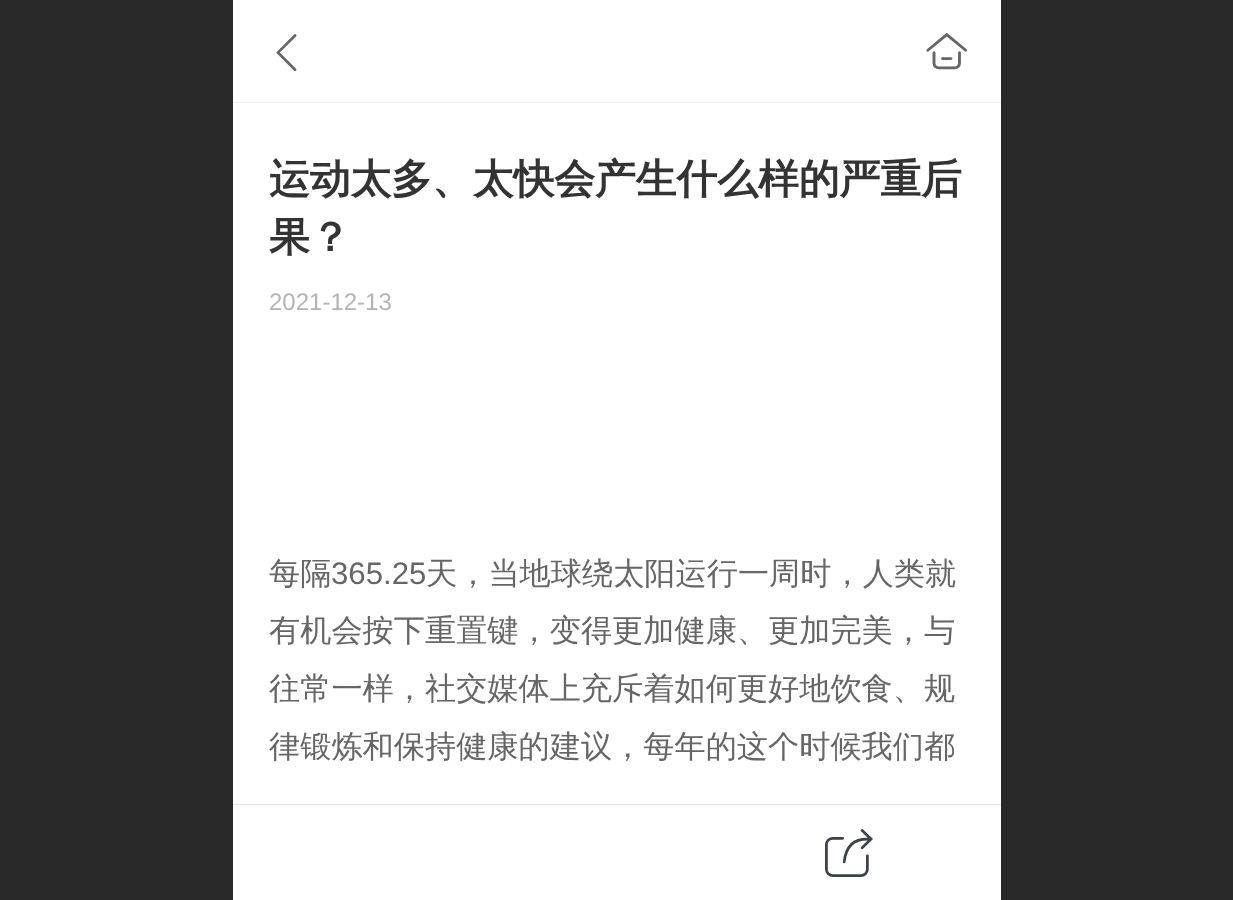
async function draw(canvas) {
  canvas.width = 1233;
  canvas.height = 900;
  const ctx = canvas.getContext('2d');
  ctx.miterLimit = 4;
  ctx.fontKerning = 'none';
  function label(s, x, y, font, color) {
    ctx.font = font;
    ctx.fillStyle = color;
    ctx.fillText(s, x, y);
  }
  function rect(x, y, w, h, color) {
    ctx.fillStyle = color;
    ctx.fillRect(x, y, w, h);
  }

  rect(0, 0, 1233, 900, '#fff');
  rect(0, 0, 233, 900, '#282828');
  rect(233, 102, 768, 1, '#eee');
  label('򰊔', 268, 68, '37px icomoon', '#666');
  label('򰌓', 926, 68, '40.75px icomoon', '#666');
  label('运动太多、太快会产生什么样的严重后', 269, 193, 'bold 40.75px WenQuanYi Zen Hei', '#333');
  label('果？', 269, 251, 'bold 40.75px WenQuanYi Zen Hei', '#333');
  label('2021-12-13', 269, 310, '24px Liberation Sans', '#b3b3b3');
  label('每隔', 269, 584, '500 31.2px WenQuanYi Zen Hei', '#666');
  label('365.25', 331, 584, '31.2px Liberation Sans', '#666');
  label('天，当地球绕太阳运行一周时，人类就', 426, 584, '500 31.2px WenQuanYi Zen Hei', '#666');
  label('有机会按下重置键，变得更加健康、更加完美，与', 269, 641, '500 31.2px WenQuanYi Zen Hei', '#666');
  label('往常一样，社交媒体上充斥着如何更好地饮食、规', 269, 699, '500 31.2px WenQuanYi Zen Hei', '#666');
  label('律锻炼和保持健康的建议，每年的这个时候我们都', 269, 757, '500 31.2px WenQuanYi Zen Hei', '#666');
  rect(233, 804, 768, 1, '#e5e5e5');
  label('򰌐', 825, 873, '48px icomoon', '#3c414a');
  rect(1001, 0, 232, 900, '#282828');
}

draw(document.querySelector('canvas'));
